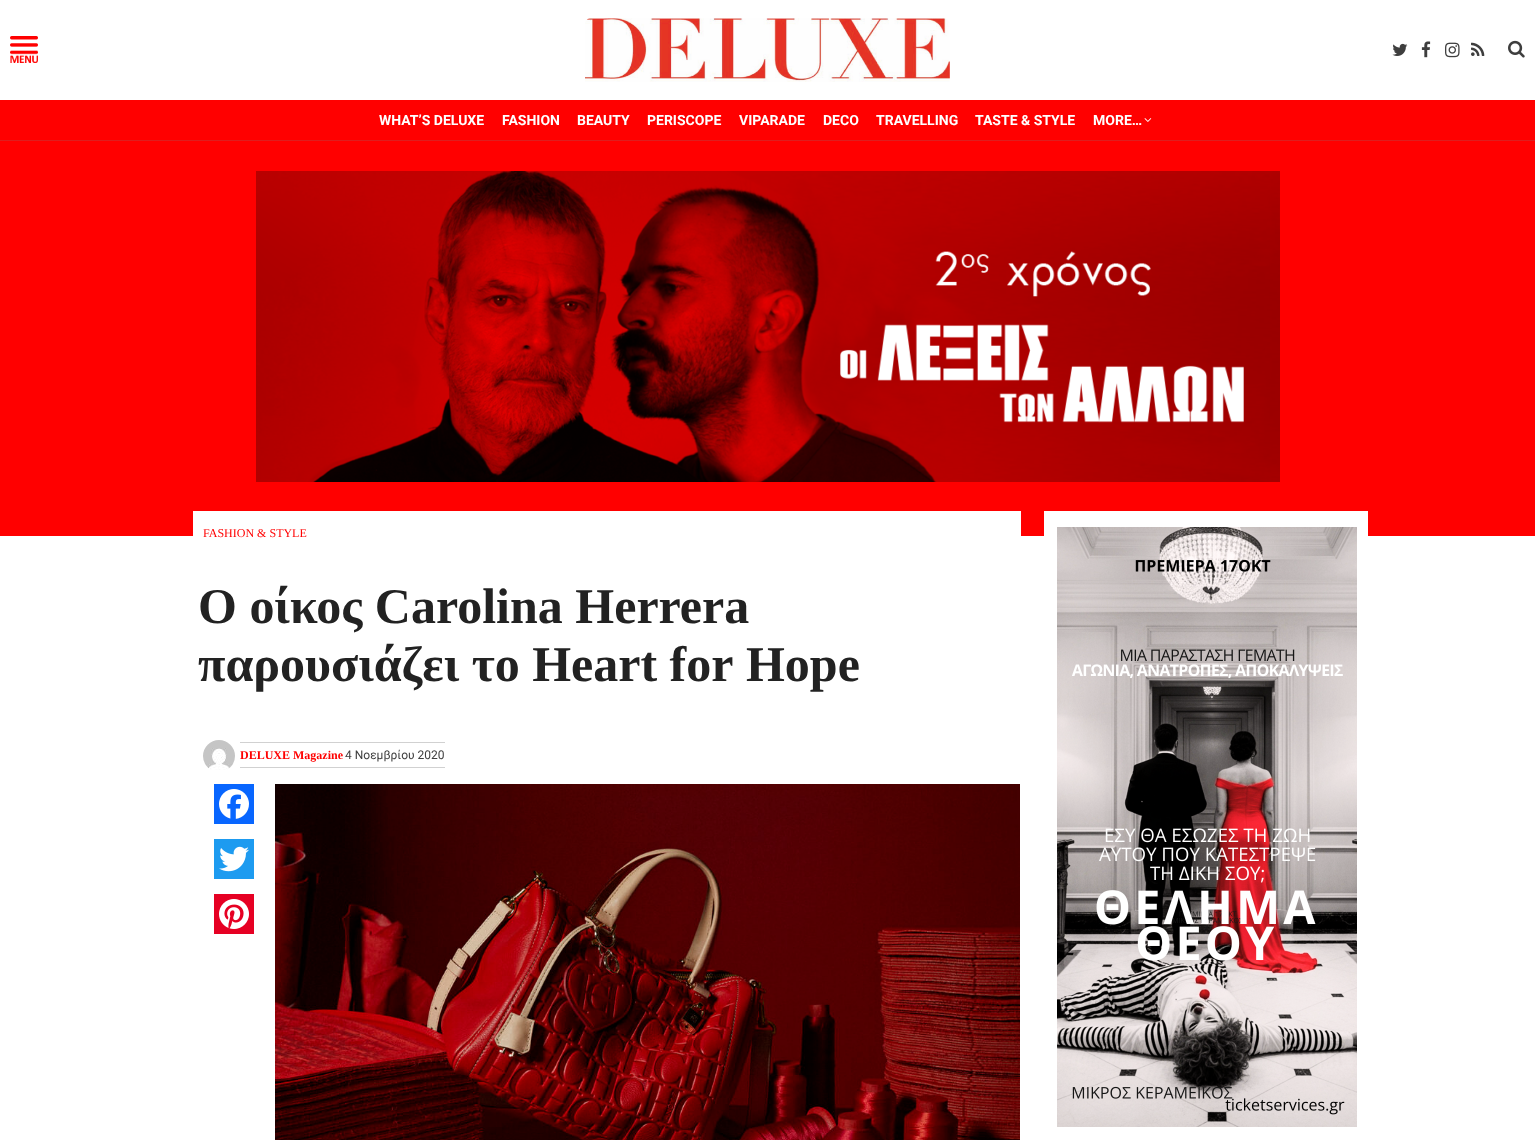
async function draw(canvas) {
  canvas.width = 1535;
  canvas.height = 1140;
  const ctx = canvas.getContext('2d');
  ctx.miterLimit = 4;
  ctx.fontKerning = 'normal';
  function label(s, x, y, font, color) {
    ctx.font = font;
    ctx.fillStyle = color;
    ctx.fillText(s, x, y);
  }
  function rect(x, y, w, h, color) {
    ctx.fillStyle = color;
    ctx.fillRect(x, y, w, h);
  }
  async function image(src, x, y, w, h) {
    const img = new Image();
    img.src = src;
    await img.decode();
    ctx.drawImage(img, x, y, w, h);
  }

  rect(0, 0, 1535, 1140, '#fff');
  await image('assets/img1.png', 10, 36, 28, 27);
  await image('assets/img2.png', 585, 18, 365, 64);
  await image('assets/img3.png', 1392, 43, 16, 13);
  await image('assets/img4.png', 1421, 41, 10, 17);
  await image('assets/img5.png', 1445, 42, 15, 16);
  await image('assets/img6.png', 1471, 42, 14, 14);
  await image('assets/img7.png', 1508, 40, 17, 18);
  rect(0, 100, 1535, 40, '#f00');
  rect(0, 140, 1535, 1, '#df1e1e');
  label('WHAT’S DELUXE', 379, 125, 'bold 14px Roboto', '#fff');
  label('FASHION', 502, 125, 'bold 14px Roboto', '#fff');
  label('BEAUTY', 577, 125, 'bold 14px Roboto', '#fff');
  label('PERISCOPE', 647, 125, 'bold 14px Roboto', '#fff');
  label('VIPARADE', 739, 125, 'bold 14px Roboto', '#fff');
  label('DECO', 823, 125, 'bold 14px Roboto', '#fff');
  label('TRAVELLING', 876, 125, 'bold 14px Roboto', '#fff');
  label('TASTE & STYLE', 975, 125, 'bold 14px Roboto', '#fff');
  label('MORE…', 1093, 125, 'bold 14px Roboto', '#fff');
  await image('assets/img8.png', 1144, 118, 8, 4);
  rect(0, 141, 1535, 395, '#f00');
  await image('assets/img9.png', 256, 171, 1024, 311);
  rect(193, 511, 828, 25, '#fff');
  label('FASHION & STYLE', 203, 537, '12px Tinos', '#f00');
  label('Ο οίκος Carolina Herrera', 198, 623, 'bold 50px Tinos', '#222');
  label('παρουσιάζει το Heart for Hope', 198, 681, 'bold 50px Tinos', '#222');
  await image('assets/img10.png', 203, 740, 32, 30);
  label('DELUXE Magazine', 240, 759, 'bold 12px Tinos', '#f00');
  rect(240, 767, 205, 1, '#d1d1d1');
  label('4 Νοεμβρίου 2020', 345, 759, '12px Roboto', '#3e3e3e');
  rect(240, 742, 205, 1, '#d1d1d1');
  rect(214, 784, 40, 40, '#0866ff');
  await image('assets/img11.png', 219, 789, 30, 30);
  rect(214, 839, 40, 40, '#1d9bf0');
  await image('assets/img12.png', 219, 846, 30, 26);
  rect(214, 894, 40, 40, '#e60023');
  await image('assets/img13.png', 219, 899, 30, 30);
  await image('assets/img14.png', 275, 784, 745, 356);
  rect(1044, 511, 324, 25, '#fff');
  await image('assets/img15.png', 1057, 527, 300, 600);
}

draw(document.querySelector('canvas'));
